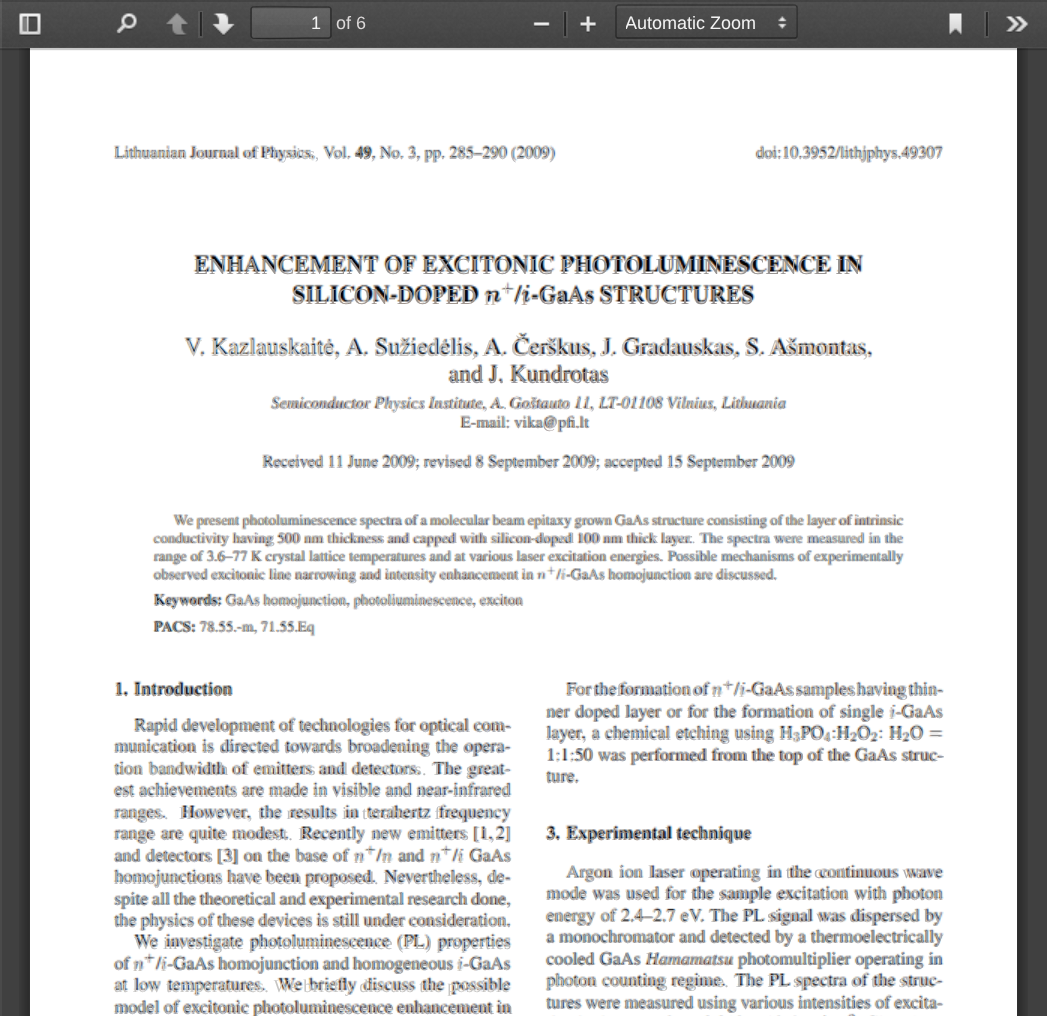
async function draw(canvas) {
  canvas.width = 1047;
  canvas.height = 1016;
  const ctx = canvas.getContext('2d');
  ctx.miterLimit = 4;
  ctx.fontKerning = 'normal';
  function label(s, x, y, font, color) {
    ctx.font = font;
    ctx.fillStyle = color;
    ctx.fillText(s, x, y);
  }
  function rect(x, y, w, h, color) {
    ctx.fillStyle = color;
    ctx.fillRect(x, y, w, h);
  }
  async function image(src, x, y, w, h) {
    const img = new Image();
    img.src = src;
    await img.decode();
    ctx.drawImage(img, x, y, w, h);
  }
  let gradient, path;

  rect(0, 0, 1047, 1016, '#404040');
  rect(0, 48, 2, 968, '#4a4a4a');
  await image('assets/img11.png', 19, 48, 1009, 968);
  await image('assets/img12.png', 30, 48, 987, 968);
  ctx.save();
  ctx.beginPath();
  ctx.rect(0, 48, 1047, 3);
  ctx.clip();
  ctx.fillStyle = '#0000001a';
  ctx.filter = 'blur(1px)';
  ctx.beginPath();
  ctx.rect(0, 2, 1047, 48);
  ctx.fill();
  ctx.filter = 'none';
  ctx.restore();
  rect(0, 48, 1047, 2, '#00000026');
  await image('assets/img1.png', 0, 0, 1047, 48);
  rect(0, 47, 1047, 2, '#ffffff0d');
  rect(0, 0, 1047, 2, '#00000026');
  rect(0, 0, 2, 48, '#ffffff14');
  await image('assets/img2.png', 19, 13, 22, 23);
  await image('assets/img3.png', 116, 13, 21, 22);
  await image('assets/img4.png', 166, 13, 22, 23);
  ctx.strokeStyle = '#ffffff14';
  ctx.lineWidth = 2;
  ctx.strokeRect(199, 12, 3, 25);
  rect(200, 12, 2, 24, '#00000080');
  await image('assets/img5.png', 212, 13, 23, 23);
  ctx.fillStyle = '#ffffff0d';
  path = new Path2D('M251 38C251 44 266 41 266 41H316C333 41 332 44 332 29C332 26 333 11 332 9V36C332 38 330 39 328 39H254C252 39 252 38 251 38Z');
  ctx.fill(path);
  rect(252, 8, 78, 30, '#ffffff17');
  gradient = ctx.createLinearGradient(291, 7.5, 291, 38);
  gradient.addColorStop(0, '#ffffff0d');
  gradient.addColorStop(1, '#ffffff00');
  ctx.fillStyle = gradient;
  ctx.fillRect(252, 8, 78, 17);
  ctx.fillStyle = '#0000000d';
  path = new Path2D('M254 9H328L330 10C330 9 330 8 328 8H253C252 8 252 9 252 10Z');
  ctx.fill(path);
  path = new Path2D('M252 7.5L252.5 7C254 6 309.5 7 316 7H328.5L330 7.5');
  ctx.strokeStyle = '#00000052';
  ctx.lineWidth = 1.5;
  ctx.stroke(path);
  path = new Path2D('M330 7.5C330.5 8 331 8.5 331 9V36C331 36.5 330.5 37 330 37.5');
  ctx.strokeStyle = '#00000061';
  ctx.stroke(path);
  path = new Path2D('M330 37.5L328.5 38H316C309.5 38 254 39 252.5 38L252 37.5');
  ctx.strokeStyle = '#0000006b';
  ctx.stroke(path);
  path = new Path2D('M252 37.5C251.5 37 251 36.5 251 36V9C251 8.5 251.5 8 252 7.5');
  ctx.strokeStyle = '#00000061';
  ctx.stroke(path);
  label('1', 311, 29, '18px Liberation Sans', '#f2f2f2');
  label('of 6', 336, 29, '18px Liberation Sans', '#dbd8d8');
  await image('assets/img6.png', 533, 22, 17, 5);
  ctx.strokeStyle = '#ffffff14';
  ctx.lineWidth = 2;
  ctx.strokeRect(564, 12, 3, 25);
  rect(564, 12, 2, 24, '#00000080');
  await image('assets/img7.png', 580, 16, 16, 17);
  ctx.fillStyle = '#ffffff0d';
  path = new Path2D('M615 36C615 38 615 41 618 41H795C798 41 798 38 798 36C798 38 797 39 795 39H618C616 39 615 38 615 36Z');
  ctx.fill(path);
  await image('assets/img8.png', 778, 16, 9, 13);
  path = new Path2D('M618 8H795C796 8 796 8 796 9V38C798 37 797 12 797 8C797 7 796 6 796 6H618L617 7V8Z');
  ctx.fill(path);
  path = new Path2D('M616.5 6L618 5H795L796.5 6');
  ctx.strokeStyle = '#00000052';
  ctx.lineWidth = 1.5;
  ctx.stroke(path);
  path = new Path2D('M796.5 6C797 6.5 797 7 797 7.5V36C797 36.5 797 37 796.5 37.5');
  ctx.strokeStyle = '#00000061';
  ctx.stroke(path);
  path = new Path2D('M796.5 37.5L795 38H618L616.5 37.5');
  ctx.strokeStyle = '#0000006b';
  ctx.stroke(path);
  path = new Path2D('M616.5 37.5C616 37 616 36.5 616 36V7.5C616 7 616 6.5 616.5 6');
  ctx.strokeStyle = '#00000061';
  ctx.stroke(path);
  ctx.save();
  ctx.beginPath();
  ctx.rect(626, 11, 177, 24);
  ctx.clip();
  label('Automatic Zoom', 625, 29, '18px Liberation Sans', '#f2f2f2');
  ctx.restore();
  await image('assets/img9.png', 949, 13, 13, 23);
  ctx.strokeStyle = '#ffffff14';
  ctx.lineWidth = 2;
  ctx.strokeRect(985, 12, 3, 25);
  rect(986, 12, 2, 24, '#00000080');
  await image('assets/img10.png', 1006, 16, 23, 17);
  ctx.letterSpacing = '0.15px';
  label('Lithuanian Journal of Physics, Vol.', 114, 159, '16.5px Liberation Serif', '#bcbec2');
  ctx.letterSpacing = '0px';
  label('49', 355, 159, '16.5px Liberation Serif', '#878483');
  label(', No. 3, pp. 285–290 (2009)', 371, 159, '16.5px Liberation Serif', '#b5b4b8');
  label('doi:10.3952/lithjphys.49307', 756, 159, '16.5px Liberation Serif', '#b5b4b8');
  ctx.letterSpacing = '0.8px';
  label('ENHANCEMENT OF EXCITONIC PHOTOLUMINESCENCE IN', 194, 274, '23.1px Liberation Serif', '#979391');
  ctx.letterSpacing = '0.75px';
  label('SILICON-DOPED', 292, 304, '23.1px Liberation Serif', '#9f958e');
  ctx.letterSpacing = '0px';
  label('n', 484, 305, '23.8px Liberation Serif', '#cbc1b6');
  label('+', 501, 295, '16.5px Liberation Serif', '#d7d3cb');
  label('/', 515, 304, '23.1px Liberation Serif', '#7d97b6');
  label('i', 521, 305, '23.8px Liberation Serif', '#b9a89d');
  ctx.letterSpacing = '0.6px';
  label('-GaAs STRUCTURES', 531, 304, '23.1px Liberation Serif', '#938d8c');
  ctx.letterSpacing = '0px';
  label('V. Kazlauskaitė, A. Sužiedėlis, A. Čerškus, J. Gradauskas, S. Ašmontas,', 185, 356, '23.8px Liberation Serif', '#c6c1bc');
  label('and J. Kundrotas', 449, 383, '23.8px Liberation Serif', '#98969b');
  label('Semiconductor Physics Institute, A. Goštauto 11, LT-01108 Vilnius, Lithuania', 271, 409, '16.5px Liberation Serif', '#b5b4b8');
  ctx.letterSpacing = '-0.05px';
  label('E-mail: vika@pfi.lt', 461, 428, '16.5px Liberation Serif', '#aaa2a2');
  ctx.letterSpacing = '0px';
  label('Received 11 June 2009; revised 8 September 2009; accepted 15 September 2009', 262, 468, '16.5px Liberation Serif', '#afaeb3');
  ctx.letterSpacing = '-0.1px';
  label('We present photoluminescence spectra of a molecular beam epitaxy grown GaAs structure consisting of the layer of intrinsic', 174, 525, '14.87px Liberation Serif', '#b0a9a6');
  ctx.letterSpacing = '0.13px';
  label('conductivity having 500 nm thickness and capped with silicon-doped 100 nm thick layer. The spectra were measured in the', 154, 543, '14.87px Liberation Serif', '#b5b4b8');
  ctx.letterSpacing = '0px';
  label('range of 3.6–77 K crystal lattice temperatures and at various laser excitation energies. Possible mechanisms of experimentally', 154, 561, '14.87px Liberation Serif', '#a4a6ac');
  label('observed excitonic line narrowing and intensity enhancement in', 154, 580, '14.87px Liberation Serif', '#afaeb3');
  label('i', 561, 580, '14.87px Liberation Serif', '#cdcacd');
  label('-GaAs homojunction are discussed.', 566, 580, '14.87px Liberation Serif', '#afaeb3');
  ctx.letterSpacing = '0.25px';
  label('Keywords:', 154, 606, '14.87px Liberation Serif', '#9d9da0');
  ctx.letterSpacing = '0px';
  label('GaAs homojunction, photoliuminescence, exciton', 226, 606, '14.87px Liberation Serif', '#bbb4b4');
  ctx.letterSpacing = '0.4px';
  label('PACS:', 154, 632, '14.87px Liberation Serif', '#878483');
  ctx.letterSpacing = '0px';
  label('78.55.-m, 71.55.Eq', 200, 632, '14.87px Liberation Serif', '#afaeb3');
  ctx.letterSpacing = '0.75px';
  label('1. Introduction', 114, 696, '18.1px Liberation Serif', '#9f9285');
  ctx.letterSpacing = '0.5px';
  label('Fortheformationof', 566, 696, '18.1px Liberation Serif', '#b5b4b8');
  ctx.letterSpacing = '0px';
  label('n', 712, 697, '18.1px Liberation Serif', '#c6c1bc');
  label('+', 723, 689, '13px Liberation Serif', '#cbc1b6');
  label('/', 734, 696, '18.1px Liberation Serif', '#a2aec2');
  label('i', 739, 697, '18.1px Liberation Serif', '#cdc8c3');
  ctx.letterSpacing = '0.4px';
  label('-GaAssampleshavingthin-', 746, 696, '18.1px Liberation Serif', '#afaeb3');
  ctx.letterSpacing = '0.22px';
  label('ner doped layer or for the formation of single', 546, 718, '18.1px Liberation Serif', '#aaa2a2');
  ctx.letterSpacing = '0px';
  label('i', 889, 719, '18.1px Liberation Serif', '#cdc8c3');
  label('-GaAs', 896, 718, '18.1px Liberation Serif', '#aaa2a2');
  label('Rapid development of technologies for optical com-', 134, 732, '18.1px Liberation Serif', '#a4a6ac');
  ctx.letterSpacing = '0.15px';
  label('layer, a chemical etching using H', 546, 740, '18.1px Liberation Serif', '#afaeb3');
  ctx.letterSpacing = '0px';
  label('3', 793, 742, '13px Liberation Serif', '#cdc8c3');
  label('PO', 800, 740, '18.1px Liberation Serif', '#aaa2a2');
  label('4', 824, 742, '13px Liberation Serif', '#b5b4b8');
  label('H', 836, 740, '18.1px Liberation Serif', '#979391');
  label('2', 850, 742, '13px Liberation Serif', '#bbb4b4');
  label('O', 857, 740, '18.1px Liberation Serif', '#a4a6ac');
  label('2', 870, 742, '13px Liberation Serif', '#bbb4b4');
  label('H', 889, 740, '18.1px Liberation Serif', '#98969b');
  label('2', 902, 742, '13px Liberation Serif', '#bbb4b4');
  label('O', 910, 740, '18.1px Liberation Serif', '#b0a9a6');
  label('=', 929, 741, '18.1px Liberation Serif', '#ebeae9');
  ctx.letterSpacing = '0.2px';
  label('munication is directed towards broadening the opera-', 114, 753, '18.1px Liberation Serif', '#afaeb3');
  ctx.letterSpacing = '0px';
  label('1', 546, 761, '18.1px Liberation Serif', '#908993');
  label(':', 555, 762, '18.1px Liberation Serif', '#dbd8d8');
  label(':', 569, 762, '18.1px Liberation Serif', '#dbd8d8');
  ctx.letterSpacing = '0.15px';
  label('50 was performed from the top of the GaAs struc-', 575, 761, '18.1px Liberation Serif', '#9a9fa9');
  ctx.letterSpacing = '0.4px';
  label('tion bandwidth of emitters and detectors. The great-', 114, 775, '18.1px Liberation Serif', '#babbbb');
  ctx.letterSpacing = '0px';
  label('ture.', 546, 783, '18.1px Liberation Serif', '#b0a9a6');
  ctx.letterSpacing = '0.05px';
  label('est achievements are made in visible and near-infrared', 114, 797, '18.1px Liberation Serif', '#b5b4b8');
  ctx.letterSpacing = '0.47px';
  label('ranges.  However, the results in terahertz frequency', 114, 819, '18.1px Liberation Serif', '#bcbec2');
  ctx.letterSpacing = '0.45px';
  label('range are quite modest. Recently new emitters [1,2]', 114, 840, '18.1px Liberation Serif', '#b5b4b8');
  ctx.letterSpacing = '0.6px';
  label('3. Experimental technique', 546, 840, '18.1px Liberation Serif', '#998c83');
  ctx.letterSpacing = '0.25px';
  label('and detectors [3] on the base of', 114, 862, '18.1px Liberation Serif', '#a6a9b2');
  ctx.letterSpacing = '0px';
  label('n', 354, 863, '18.1px Liberation Serif', '#c8bbb4');
  label('+', 365, 855, '13px Liberation Serif', '#cdc8c3');
  label('n', 382, 863, '18.1px Liberation Serif', '#cbc1b6');
  label('and', 398, 862, '18.1px Liberation Serif', '#98969b');
  label('n', 430, 863, '18.1px Liberation Serif', '#cbc1b6');
  label('+', 441, 855, '13px Liberation Serif', '#cdc7bb');
  label('i', 458, 863, '18.1px Liberation Serif', '#cdc7bb');
  label('GaAs', 470, 862, '18.1px Liberation Serif', '#a4a0a3');
  ctx.letterSpacing = '0.13px';
  label('homojunctions have been proposed. Nevertheless, de-', 114, 884, '18.1px Liberation Serif', '#b5b4b8');
  ctx.letterSpacing = '0.4px';
  label('Argon ion laser operating in the continuous wave', 566, 878, '18.1px Liberation Serif', '#afaeb3');
  ctx.letterSpacing = '-0.1px';
  label('spite all the theoretical and experimental research done,', 114, 905, '18.1px Liberation Serif', '#9a9fa9');
  ctx.letterSpacing = '0.22px';
  label('mode was used for the sample excitation with photon', 546, 900, '18.1px Liberation Serif', '#b0a9a6');
  ctx.letterSpacing = '-0.08px';
  label('the physics of these devices is still under consideration.', 114, 927, '18.1px Liberation Serif', '#afaeb3');
  ctx.letterSpacing = '0.15px';
  label('energy of 2.4–2.7 eV. The PL signal was dispersed by', 546, 922, '18.1px Liberation Serif', '#b5b0ac');
  ctx.letterSpacing = '0.25px';
  label('We investigate photoluminescence (PL) properties', 134, 949, '18.1px Liberation Serif', '#babbbb');
  ctx.letterSpacing = '0.05px';
  label('a monochromator and detected by a thermoelectrically', 546, 943, '18.1px Liberation Serif', '#9d9da0');
  ctx.letterSpacing = '0px';
  label('of', 114, 970, '18.1px Liberation Serif', '#aaa2a2');
  label('n', 133, 971, '18.1px Liberation Serif', '#c6c1bc');
  label('+', 144, 964, '13px Liberation Serif', '#dcd6d1');
  label('i', 161, 971, '18.1px Liberation Serif', '#cdc8c3');
  ctx.letterSpacing = '-0.05px';
  label('-GaAs homojunction and homogeneous', 167, 970, '18.1px Liberation Serif', '#9d9da0');
  ctx.letterSpacing = '0px';
  label('i', 457, 971, '18.1px Liberation Serif', '#cdc8c3');
  label('-GaAs', 463, 970, '18.1px Liberation Serif', '#aaa2a2');
  ctx.letterSpacing = '0.05px';
  label('cooled GaAs', 546, 965, '18.1px Liberation Serif', '#98969b');
  ctx.letterSpacing = '0.13px';
  label('Hamamatsu', 646, 965, '18.1px Liberation Serif', '#aaa2a2');
  ctx.letterSpacing = '0px';
  label('photomultiplier operating in', 738, 965, '18.1px Liberation Serif', '#9597a1');
  ctx.letterSpacing = '0.4px';
  label('at low temperatures. We briefly discuss the possible', 114, 992, '18.1px Liberation Serif', '#c6c5c3');
  ctx.letterSpacing = '0.25px';
  label('photon counting regime. The PL spectra of the struc-', 546, 987, '18.1px Liberation Serif', '#babbbb');
  ctx.letterSpacing = '0px';
  label('model of excitonic photoluminescence enhancement in', 114, 1014, '18.1px Liberation Serif', '#a4a6ac');
  ctx.letterSpacing = '-0.08px';
  label('tures were measured using various intensities of excita-', 546, 1009, '18.1px Liberation Serif', '#a4a6ac');
}

draw(document.querySelector('canvas'));
